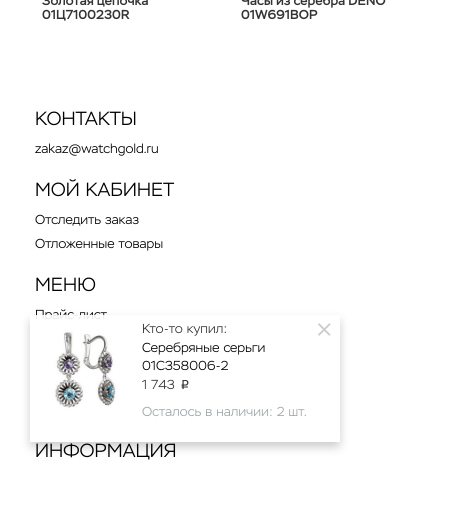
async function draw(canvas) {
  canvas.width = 451;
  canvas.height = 522;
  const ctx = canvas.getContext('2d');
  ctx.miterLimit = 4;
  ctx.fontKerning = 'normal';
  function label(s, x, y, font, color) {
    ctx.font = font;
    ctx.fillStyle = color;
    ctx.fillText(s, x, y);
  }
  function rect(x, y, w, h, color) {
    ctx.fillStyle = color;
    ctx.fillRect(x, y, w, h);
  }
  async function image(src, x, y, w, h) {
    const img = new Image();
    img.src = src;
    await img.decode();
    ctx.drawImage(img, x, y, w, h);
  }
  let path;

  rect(0, 0, 451, 522, '#fff');
  await image('assets/img1.png', 42, 0, 106, 7);
  await image('assets/img2.png', 42, 9, 88, 12);
  await image('assets/img3.png', 241, 0, 145, 8);
  await image('assets/img4.png', 241, 9, 77, 11);
  await image('assets/img5.png', 36, 111, 100, 15);
  await image('assets/img6.png', 35, 143, 123, 13);
  await image('assets/img7.png', 36, 179, 139, 18);
  await image('assets/img8.png', 35, 214, 104, 12);
  await image('assets/img9.png', 35, 238, 128, 13);
  await image('assets/img10.png', 36, 277, 60, 15);
  await image('assets/img11.png', 36, 309, 71, 11);
  await image('assets/img12.png', 36, 443, 140, 17);
  ctx.save();
  path = new Path2D('M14 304H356V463H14ZM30 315H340V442H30Z');
  ctx.clip(path, 'evenodd');
  ctx.fillStyle = '#00000033';
  ctx.filter = 'blur(5px)';
  ctx.beginPath();
  ctx.rect(30, 320, 310, 127);
  ctx.fill();
  ctx.filter = 'none';
  ctx.restore();
  rect(36, 315, 69, 5, '#ffffffe6');
  await image('assets/img13.png', 35, 320, 83, 97);
  await image('assets/img14.png', 318, 323, 13, 13);
  await image('assets/img15.png', 143, 323, 83, 13);
  await image('assets/img16.png', 142, 342, 123, 13);
  await image('assets/img17.png', 142, 360, 86, 11);
  await image('assets/img18.png', 142, 379, 33, 11);
  label('p', 179, 389, '13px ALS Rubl', '#343434');
  await image('assets/img19.png', 142, 406, 164, 11);
}

draw(document.querySelector('canvas'));
